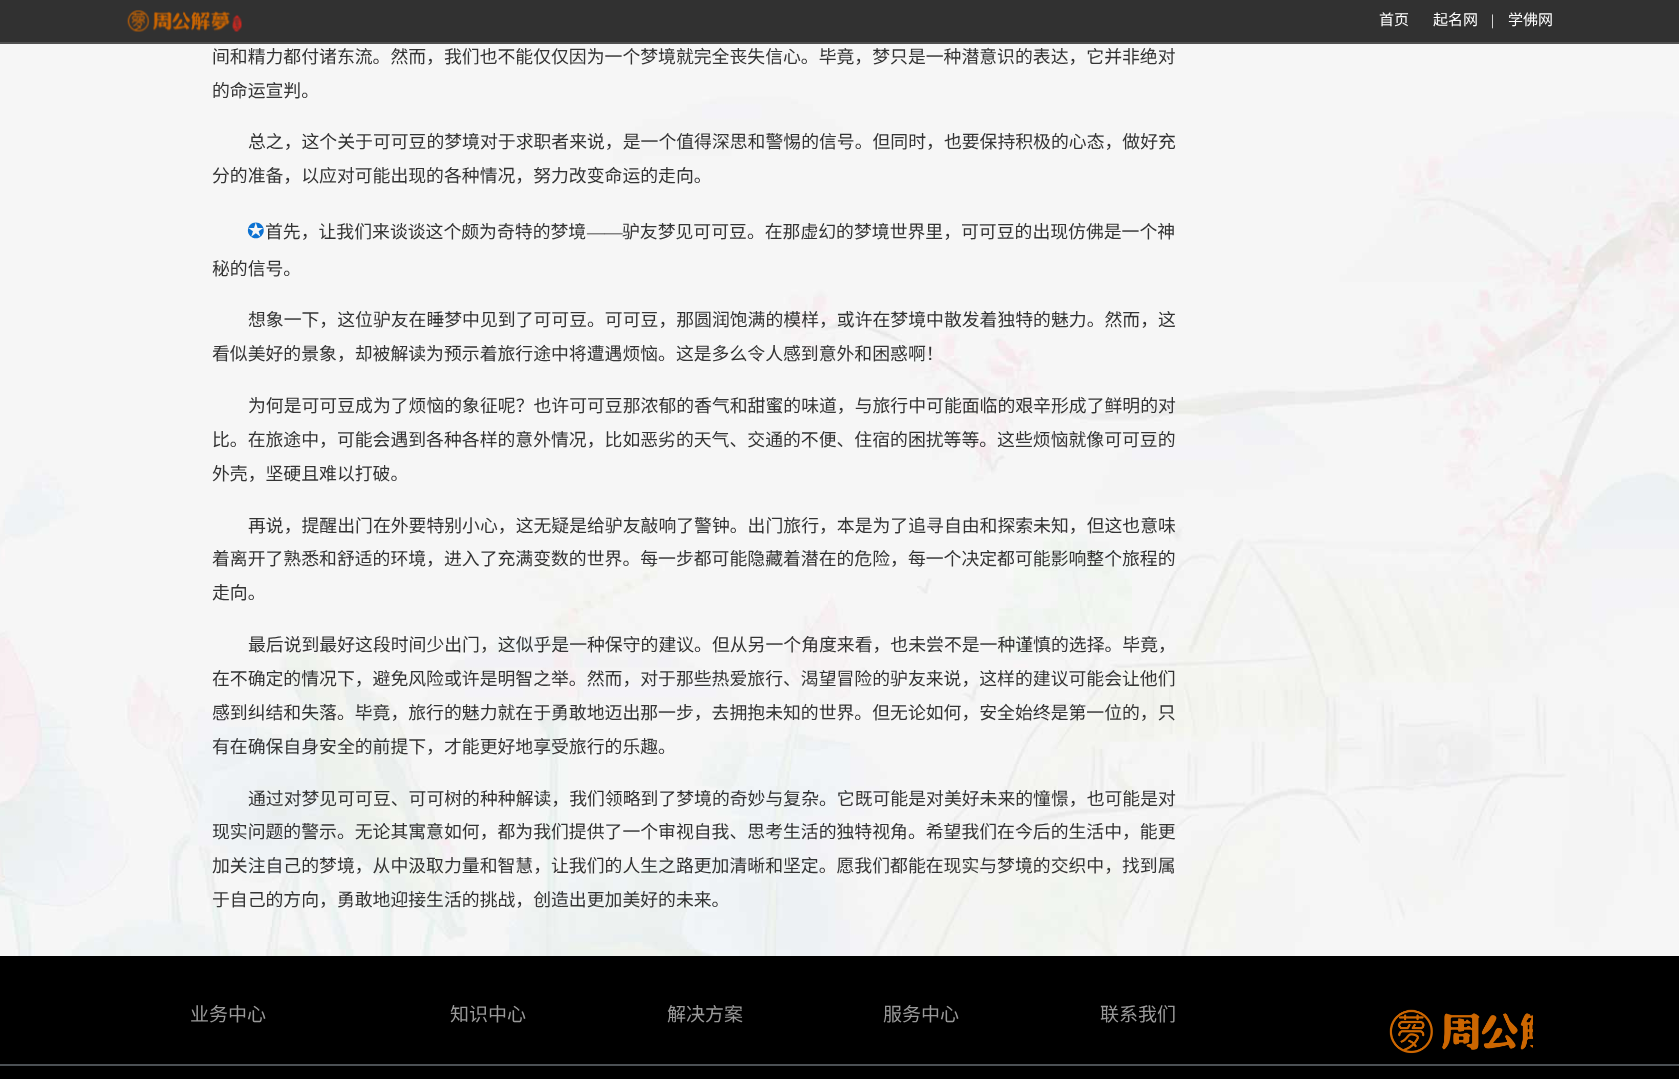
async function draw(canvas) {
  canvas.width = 1679;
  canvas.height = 1079;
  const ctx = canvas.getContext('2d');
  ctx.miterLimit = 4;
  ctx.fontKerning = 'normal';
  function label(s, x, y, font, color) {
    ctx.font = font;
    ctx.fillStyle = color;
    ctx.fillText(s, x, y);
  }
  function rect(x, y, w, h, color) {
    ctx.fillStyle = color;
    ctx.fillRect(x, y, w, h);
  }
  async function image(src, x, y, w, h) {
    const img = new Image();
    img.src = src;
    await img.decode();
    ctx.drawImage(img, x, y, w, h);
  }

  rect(0, 0, 1679, 1079, '#fff');
  await image('assets/img1.png', 0, 0, 1679, 956);
  rect(0, 0, 1679, 42, '#000000cc');
  rect(0, 42, 1679, 2, '#505050');
  await image('assets/img2.png', 127, 10, 115, 22);
  label('首页', 1379, 25, '15px Noto Sans CJK SC', '#fff');
  label('起名网', 1433, 25, '15px Noto Sans CJK SC', '#fff');
  label('|', 1491, 25, '15px Liberation Serif', '#fff');
  label('学佛网', 1508, 25, '15px Noto Sans CJK SC', '#fff');
  label('间和精力都付诸东流。然而，我们也不能仅仅因为一个梦境就完全丧失信心。毕竟，梦只是一种潜意识的表达，它并非绝对', 212, 63, '17.85px Noto Sans CJK SC', '#333');
  label('的命运宣判。', 212, 97, '17.85px Noto Sans CJK SC', '#333');
  label('总之，这个关于可可豆的梦境对于求职者来说，是一个值得深思和警惕的信号。但同时，也要保持积极的心态，做好充', 248, 148, '17.85px Noto Sans CJK SC', '#333');
  label('分的准备，以应对可能出现的各种情况，努力改变命运的走向。', 212, 182, '17.85px Noto Sans CJK SC', '#333');
  label('✪', 247, 238, '21px DejaVu Sans', '#0c72d2');
  label('首先，让我们来谈谈这个颇为奇特的梦境', 265, 238, '17.85px Noto Sans CJK SC', '#333');
  label('——', 587, 238, '17.85px Liberation Serif', '#333');
  label('驴友梦见可可豆。在那虚幻的梦境世界里，可可豆的出现仿佛是一个神', 622, 238, '17.85px Noto Sans CJK SC', '#333');
  label('秘的信号。', 212, 275, '17.85px Noto Sans CJK SC', '#333');
  label('想象一下，这位驴友在睡梦中见到了可可豆。可可豆，那圆润饱满的模样，或许在梦境中散发着独特的魅力。然而，这', 248, 326, '17.85px Noto Sans CJK SC', '#333');
  label('看似美好的景象，却被解读为预示着旅行途中将遭遇烦恼。这是多么令人感到意外和困惑啊！', 212, 360, '17.85px Noto Sans CJK SC', '#333');
  label('为何是可可豆成为了烦恼的象征呢？也许可可豆那浓郁的香气和甜蜜的味道，与旅行中可能面临的艰辛形成了鲜明的对', 248, 412, '17.85px Noto Sans CJK SC', '#333');
  label('比。在旅途中，可能会遇到各种各样的意外情况，比如恶劣的天气、交通的不便、住宿的困扰等等。这些烦恼就像可可豆的', 212, 446, '17.85px Noto Sans CJK SC', '#333');
  label('外壳，坚硬且难以打破。', 212, 480, '17.85px Noto Sans CJK SC', '#333');
  label('再说，提醒出门在外要特别小心，这无疑是给驴友敲响了警钟。出门旅行，本是为了追寻自由和探索未知，但这也意味', 248, 532, '17.85px Noto Sans CJK SC', '#333');
  label('着离开了熟悉和舒适的环境，进入了充满变数的世界。每一步都可能隐藏着潜在的危险，每一个决定都可能影响整个旅程的', 212, 565, '17.85px Noto Sans CJK SC', '#333');
  label('走向。', 212, 599, '17.85px Noto Sans CJK SC', '#333');
  label('最后说到最好这段时间少出门，这似乎是一种保守的建议。但从另一个角度来看，也未尝不是一种谨慎的选择。毕竟，', 248, 651, '17.85px Noto Sans CJK SC', '#333');
  label('在不确定的情况下，避免风险或许是明智之举。然而，对于那些热爱旅行、渴望冒险的驴友来说，这样的建议可能会让他们', 212, 685, '17.85px Noto Sans CJK SC', '#333');
  label('感到纠结和失落。毕竟，旅行的魅力就在于勇敢地迈出那一步，去拥抱未知的世界。但无论如何，安全始终是第一位的，只', 212, 719, '17.85px Noto Sans CJK SC', '#333');
  label('有在确保自身安全的前提下，才能更好地享受旅行的乐趣。', 212, 753, '17.85px Noto Sans CJK SC', '#333');
  label('通过对梦见可可豆、可可树的种种解读，我们领略到了梦境的奇妙与复杂。它既可能是对美好未来的憧憬，也可能是对', 248, 805, '17.85px Noto Sans CJK SC', '#333');
  label('现实问题的警示。无论其寓意如何，都为我们提供了一个审视自我、思考生活的独特视角。希望我们在今后的生活中，能更', 212, 838, '17.85px Noto Sans CJK SC', '#333');
  label('加关注自己的梦境，从中汲取力量和智慧，让我们的人生之路更加清晰和坚定。愿我们都能在现实与梦境的交织中，找到属', 212, 872, '17.85px Noto Sans CJK SC', '#333');
  label('于自己的方向，勇敢地迎接生活的挑战，创造出更加美好的未来。', 212, 906, '17.85px Noto Sans CJK SC', '#333');
  rect(0, 956, 1679, 123, '#000');
  label('业务中心', 190, 1021, '19px Noto Sans CJK SC', '#999');
  label('知识中心', 450, 1021, '19px Noto Sans CJK SC', '#999');
  label('解决方案', 667, 1021, '19px Noto Sans CJK SC', '#999');
  label('服务中心', 883, 1021, '19px Noto Sans CJK SC', '#999');
  label('联系我们', 1100, 1021, '19px Noto Sans CJK SC', '#999');
  await image('assets/img3.png', 1389, 1009, 144, 45);
  rect(0, 1064, 1679, 2, '#4b5054');
}

draw(document.querySelector('canvas'));
